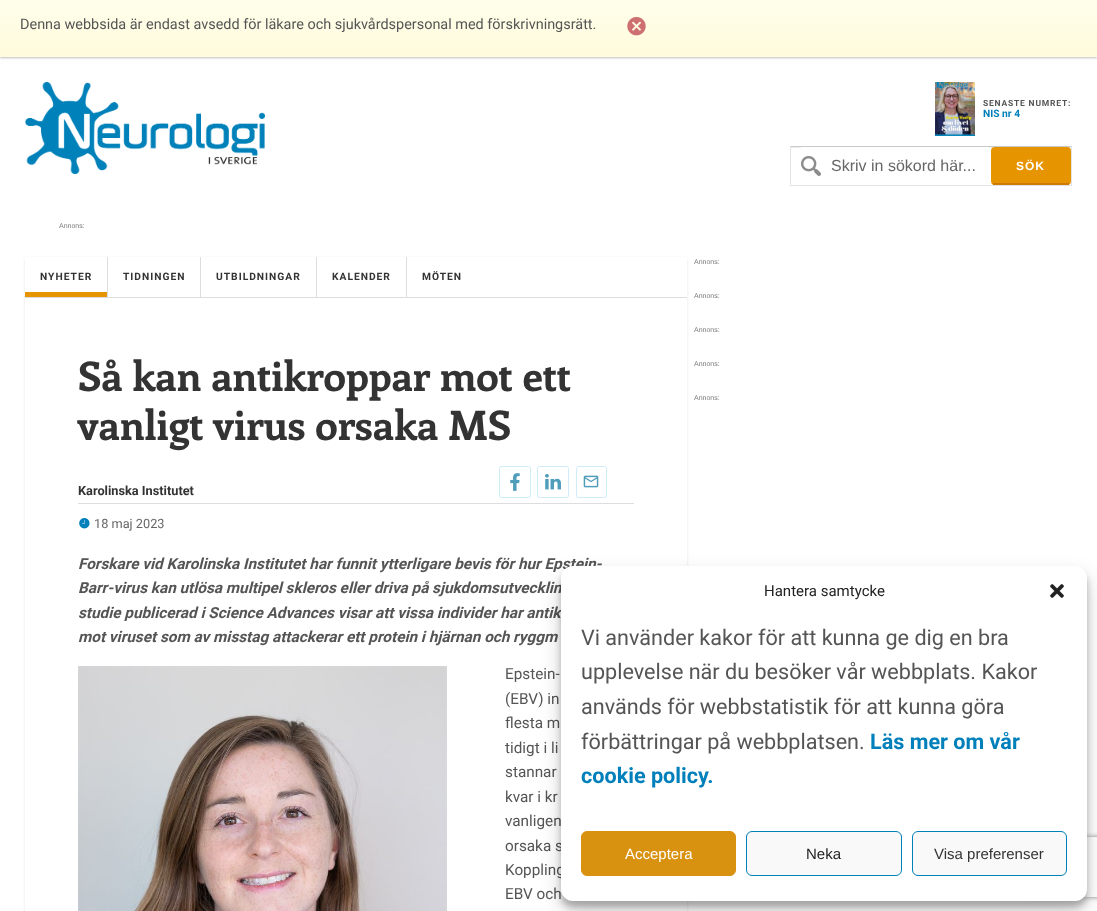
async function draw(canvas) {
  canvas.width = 1097;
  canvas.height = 911;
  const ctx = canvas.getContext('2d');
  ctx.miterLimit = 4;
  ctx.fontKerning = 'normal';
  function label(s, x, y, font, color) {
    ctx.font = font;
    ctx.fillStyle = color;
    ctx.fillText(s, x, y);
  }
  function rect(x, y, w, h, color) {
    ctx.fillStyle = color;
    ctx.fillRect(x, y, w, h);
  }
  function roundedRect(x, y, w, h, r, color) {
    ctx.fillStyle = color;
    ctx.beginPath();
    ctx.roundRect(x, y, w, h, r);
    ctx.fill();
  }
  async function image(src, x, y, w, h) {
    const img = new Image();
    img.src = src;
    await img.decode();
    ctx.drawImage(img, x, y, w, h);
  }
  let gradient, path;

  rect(0, 0, 1097, 911, '#fff');
  ctx.fillStyle = '#00000040';
  ctx.filter = 'blur(1px)';
  ctx.beginPath();
  ctx.rect(0, 1, 1097, 57);
  ctx.fill();
  ctx.filter = 'none';
  gradient = ctx.createLinearGradient(549, 0, 549, 57);
  gradient.addColorStop(0, '#fffeeb');
  gradient.addColorStop(1, '#fffbdc');
  ctx.fillStyle = gradient;
  ctx.fillRect(0, 0, 1097, 57);
  label('Denna webbsida är endast avsedd för läkare och sjukvårdspersonal med förskrivningsrätt.', 20, 29, '14.45px Roboto', '#555');
  await image('assets/img1.png', 627, 17, 19, 19);
  await image('assets/img2.png', 25, 82, 240, 92);
  await image('assets/img3.png', 935, 82, 40, 54);
  ctx.letterSpacing = '0.8px';
  label('SENASTE NUMRET:', 983, 106, 'bold 8.5px Roboto', '#555');
  ctx.letterSpacing = '0px';
  label('NIS nr 4', 983, 117, 'bold 10.25px Roboto', '#0080bb');
  rect(791, 147, 280, 1, '#eee');
  rect(790, 146, 282, 1, '#c8c9c8');
  rect(1071, 146, 1, 40, '#e3e3e3');
  rect(790, 185, 282, 1, '#e3e3e3');
  rect(790, 146, 1, 40, '#e3e3e3');
  rect(801, 147, 188, 1, '#fff');
  await image('assets/img4.png', 801, 156, 20, 20);
  label('Skriv in sökord här...', 831, 171, '16px Liberation Sans', '#666');
  roundedRect(991, 147, 80, 38, 4, '#e69400');
  rect(993, 183, 76, 2, '#cc7a00');
  ctx.letterSpacing = '1px';
  label('SÖK', 1016, 170, 'bold 12px Liberation Sans', '#fff');
  ctx.letterSpacing = '0px';
  label('Annons:', 59, 228, '7px Liberation Sans', '#777');
  ctx.fillStyle = '#0000001a';
  ctx.filter = 'blur(1.5px)';
  ctx.beginPath();
  ctx.roundRect(25, 258, 662, 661, 3);
  ctx.fill();
  ctx.filter = 'none';
  roundedRect(25, 257, 662, 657, 3, '#fff');
  rect(25, 297, 662, 1, '#ddd');
  rect(25, 292, 82, 5, '#e69400');
  ctx.letterSpacing = '1px';
  label('NYHETER', 40, 280, 'bold 10.25px Roboto', '#333');
  rect(107, 257, 1, 40, '#ddd');
  label('TIDNINGEN', 123, 280, 'bold 10.25px Roboto', '#333');
  rect(200, 257, 1, 40, '#ddd');
  label('UTBILDNINGAR', 216, 280, 'bold 10.25px Roboto', '#333');
  rect(316, 257, 1, 40, '#ddd');
  label('KALENDER', 332, 280, 'bold 10.25px Roboto', '#333');
  rect(406, 257, 1, 40, '#ddd');
  label('MÖTEN', 422, 280, 'bold 10.25px Roboto', '#333');
  ctx.letterSpacing = '0px';
  label('Så kan antikroppar mot ett', 78, 391, 'bold 40.75px Enriqueta', '#333');
  label('vanligt virus orsaka MS', 78, 440, 'bold 40.75px Enriqueta', '#333');
  rect(78, 503, 556, 1, '#ddd');
  label('Karolinska Institutet', 78, 495, 'bold 12.75px Roboto', '#333');
  ctx.beginPath();
  ctx.roundRect(499.5, 466.5, 31, 31, 2);
  ctx.strokeStyle = '#ceedf8';
  ctx.stroke();
  await image('assets/img5.png', 510, 473, 10, 18);
  ctx.beginPath();
  ctx.roundRect(537.5, 466.5, 31, 31, 2);
  ctx.stroke();
  await image('assets/img6.png', 545, 474, 16, 16);
  ctx.beginPath();
  ctx.roundRect(576.5, 466.5, 30, 31, 2);
  ctx.stroke();
  await image('assets/img7.png', 583, 475, 16, 13);
  await image('assets/img8.png', 79, 518, 11, 11);
  label('18 maj 2023', 94, 528, '12.75px Roboto', '#666');
  label('Forskare vid Karolinska Institutet har funnit ytterligare bevis för hur Epstein-', 78, 569, 'italic bold 15.3px Roboto', '#555');
  label('Barr-virus kan utlösa multipel skleros eller driva på sjukdomsutvecklin', 78, 593, 'italic bold 15.3px Roboto', '#555');
  label('studie publicerad i Science Advances visar att vissa individer har antik', 78, 618, 'italic bold 15.3px Roboto', '#555');
  label('mot viruset som av misstag attackerar ett protein i hjärnan och ryggm', 78, 642, 'italic bold 15.3px Roboto', '#555');
  await image('assets/img9.png', 78, 666, 369, 245);
  label('Epstein-', 505, 679, '15.3px Roboto', '#555');
  label('(EBV) in', 505, 704, '15.3px Roboto', '#555');
  label('flesta m', 505, 728, '15.3px Roboto', '#555');
  label('tidigt i li', 505, 753, '15.3px Roboto', '#555');
  label('stannar', 505, 777, '15.3px Roboto', '#555');
  label('kvar i kr', 505, 802, '15.3px Roboto', '#555');
  label('vanligen', 505, 826, '15.3px Roboto', '#555');
  label('orsaka s', 505, 851, '15.3px Roboto', '#555');
  label('Koppling', 505, 875, '15.3px Roboto', '#555');
  label('EBV och', 505, 899, '15.3px Roboto', '#555');
  label('Annons:', 694, 264, '7px Liberation Sans', '#777');
  label('Annons:', 694, 298, '7px Liberation Sans', '#777');
  label('Annons:', 694, 332, '7px Liberation Sans', '#777');
  label('Annons:', 694, 366, '7px Liberation Sans', '#777');
  label('Annons:', 694, 400, '7px Liberation Sans', '#777');
  ctx.fillStyle = '#0000003b';
  ctx.filter = 'blur(3px)';
  ctx.beginPath();
  ctx.roundRect(561, 572, 526, 335, 12);
  ctx.fill();
  ctx.filter = 'none';
  ctx.fillStyle = '#00000030';
  ctx.filter = 'blur(10px)';
  ctx.beginPath();
  ctx.roundRect(561, 576, 526, 335, 12);
  ctx.fill();
  ctx.filter = 'none';
  ctx.save();
  path = new Path2D('M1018 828H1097V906H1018ZM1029 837H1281C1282 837 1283 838 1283 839V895C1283 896 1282 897 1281 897H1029C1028 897 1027 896 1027 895V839C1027 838 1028 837 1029 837Z');
  ctx.clip(path, 'evenodd');
  ctx.fillStyle = '#808080';
  ctx.filter = 'blur(2.5px)';
  ctx.beginPath();
  ctx.roundRect(1027, 837, 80, 60, 2);
  ctx.fill();
  ctx.filter = 'none';
  ctx.restore();
  roundedRect(561, 566, 526, 335, 12, '#fff');
  label('Hantera samtycke', 764, 596, '15px Roboto', '#222');
  await image('assets/img10.png', 1050, 584, 14, 14);
  label('Vi använder kakor för att kunna ge dig en bra', 581, 645, '21.6px Roboto', '#555');
  label('upplevelse när du besöker vår webbplats. Kakor', 581, 679, '21.6px Roboto', '#555');
  label('används för webbstatistik för att kunna göra', 581, 714, '21.6px Roboto', '#555');
  label('förbättringar på webbplatsen.', 581, 749, '21.6px Roboto', '#555');
  label('Läs mer om vår', 870, 749, 'bold 21.6px Roboto', '#0080bb');
  label('cookie policy.', 581, 783, 'bold 21.6px Roboto', '#0080bb');
  ctx.fillStyle = '#d99110';
  ctx.beginPath();
  ctx.roundRect(581.5, 831.5, 154, 44, 5.5);
  ctx.fill();
  ctx.strokeStyle = '#d99110';
  ctx.stroke();
  label('Acceptera', 625, 859, '15px Liberation Sans', '#fff');
  ctx.fillStyle = '#f9f9f9';
  ctx.beginPath();
  ctx.roundRect(746.5, 831.5, 155, 44, 5.5);
  ctx.fill();
  ctx.strokeStyle = '#0081b9';
  ctx.stroke();
  label('Neka', 806, 859, '15px Liberation Sans', '#222');
  ctx.fillStyle = '#f9f9f9';
  ctx.beginPath();
  ctx.roundRect(912.5, 831.5, 154, 44, 5.5);
  ctx.fill();
  ctx.stroke();
  label('Visa preferenser', 934, 859, '15px Liberation Sans', '#333');
}

draw(document.querySelector('canvas'));
